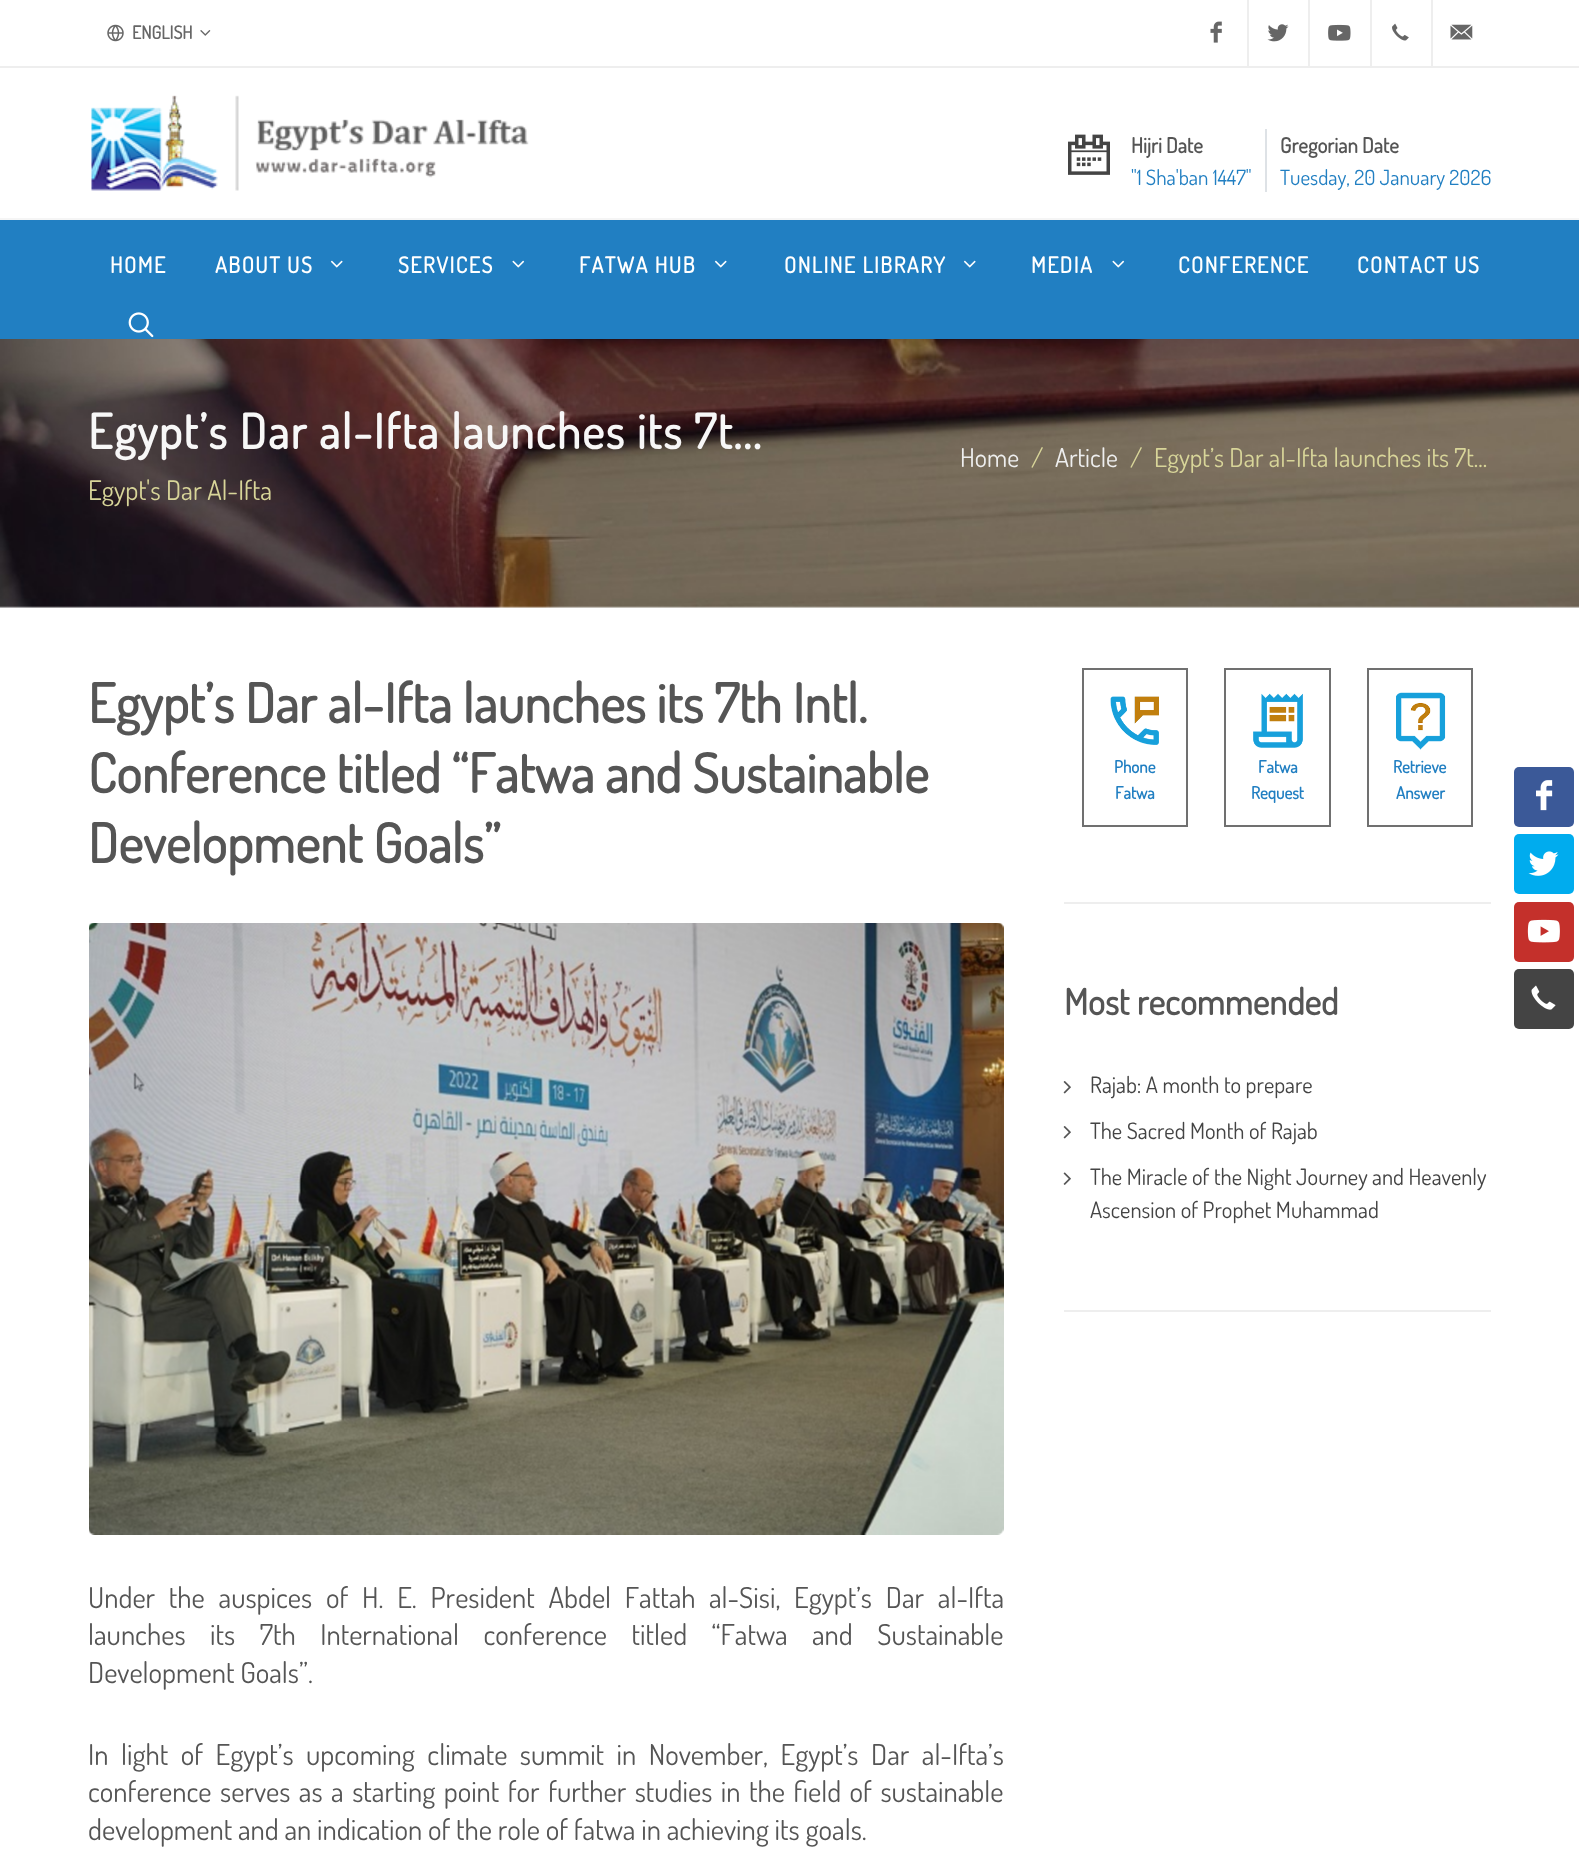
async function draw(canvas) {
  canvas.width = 1579;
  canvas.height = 1867;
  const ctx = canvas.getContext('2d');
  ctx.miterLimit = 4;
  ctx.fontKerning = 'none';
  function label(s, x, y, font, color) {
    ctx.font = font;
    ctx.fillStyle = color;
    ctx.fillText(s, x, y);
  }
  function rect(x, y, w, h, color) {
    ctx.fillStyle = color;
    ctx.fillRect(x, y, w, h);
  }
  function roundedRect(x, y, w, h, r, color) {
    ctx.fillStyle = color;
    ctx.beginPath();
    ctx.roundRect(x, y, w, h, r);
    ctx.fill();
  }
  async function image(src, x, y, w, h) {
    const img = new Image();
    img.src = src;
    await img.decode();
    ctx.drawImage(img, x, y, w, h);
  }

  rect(0, 0, 1579, 1867, '#fff');
  rect(0, 66, 1579, 2, '#eee');
  await image('assets/img1.png', 107, 24, 17, 18);
  label('ENGLISH', 132, 39, 'bold 18px Dosis', '#666');
  await image('assets/img2.png', 200, 30, 11, 6);
  await image('assets/img3.png', 1210, 21, 12, 22);
  rect(1247, 0, 2, 66, '#eee');
  await image('assets/img4.png', 1267, 24, 22, 18);
  rect(1308, 0, 2, 66, '#eee');
  await image('assets/img5.png', 1328, 24, 23, 17);
  rect(1370, 0, 2, 66, '#eee');
  await image('assets/img6.png', 1392, 23, 17, 18);
  rect(1431, 0, 2, 66, '#eee');
  await image('assets/img7.png', 1450, 24, 23, 16);
  await image('assets/img8.png', 91, 95, 438, 96);
  await image('assets/img9.png', 1068, 134, 42, 41);
  label('Hijri Date', 1131, 153, 'bold 21px Dosis', '#555');
  label('"1 Sha\'ban 1447"', 1131, 185, '21px Dosis', '#217fc2');
  rect(1265, 129, 2, 63, '#dee2e6');
  label('Gregorian Date', 1280, 153, 'bold 21px Dosis', '#555');
  label('Tuesday, 20 January 2026', 1280, 185, '21px Dosis', '#217fc2');
  rect(0, 220, 1579, 119, '#217fc2');
  rect(0, 218, 1579, 2, '#f5f5f5');
  ctx.letterSpacing = '1.5px';
  label('HOME', 110, 273, 'bold 22px Dosis', '#fff');
  label('ABOUT US', 215, 273, 'bold 22px Dosis', '#fff');
  await image('assets/img10.png', 330, 260, 13, 8);
  label('SERVICES', 398, 273, 'bold 22px Dosis', '#fff');
  await image('assets/img11.png', 512, 260, 13, 8);
  label('FATWA HUB', 579, 273, 'bold 22px Dosis', '#fff');
  await image('assets/img10.png', 714, 260, 13, 8);
  label('ONLINE LIBRARY', 784, 273, 'bold 22px Dosis', '#fff');
  await image('assets/img10.png', 963, 260, 13, 8);
  label('MEDIA', 1031, 273, 'bold 22px Dosis', '#fff');
  await image('assets/img11.png', 1112, 260, 13, 8);
  label('CONFERENCE', 1178, 273, 'bold 22px Dosis', '#fff');
  label('CONTACT US', 1357, 273, 'bold 22px Dosis', '#fff');
  await image('assets/img12.png', 128, 312, 26, 26);
  await image('assets/img13.png', 0, 339, 1579, 269);
  rect(0, 606, 1579, 2, '#ffffff26');
  label('Egypt’s Dar al-Ifta launches its 7t...', 88, 449, 'bold 48px Dosis', '#f7f7f7');
  ctx.letterSpacing = '0px';
  label('Home', 960, 467, '25.9px Dosis', '#eee');
  label('/', 1031, 467, '25.9px Dosis', '#d8d599');
  label('Article', 1055, 467, '25.9px Dosis', '#eee');
  label('/', 1130, 467, '25.9px Dosis', '#d8d599');
  label('Egypt’s Dar al-Ifta launches its 7t...', 1154, 467, '25.9px Dosis', '#d8d599');
  label('Egypt\'s Dar Al-Ifta', 88, 500, '27px Dosis', '#d8d599');
  label('Egypt’s Dar al-Ifta launches its 7th Intl.', 88, 723, 'bold 54px Dosis', '#555');
  label('Conference titled “Fatwa', 88, 793, 'bold 54px Dosis', '#555');
  label('and Sustainable', 605, 793, 'bold 54px Dosis', '#555');
  label('Development Goals”', 88, 863, 'bold 54px Dosis', '#555');
  await image('assets/img14.png', 89, 923, 915, 612);
  ctx.wordSpacing = '8px';
  label('Under the auspices of H. E. President Abdel Fattah', 88, 1608, '28.8px Dosis', '#555');
  label('al-Sisi, Egypt’s Dar al-Ifta', 709, 1608, '28.8px Dosis', '#555');
  ctx.wordSpacing = '18.75px';
  label('launches its 7th International conference titled “Fatwa', 88, 1645, '28.8px Dosis', '#555');
  label('and Sustainable', 812, 1645, '28.8px Dosis', '#555');
  ctx.wordSpacing = '0px';
  label('Development Goals”.', 88, 1683, '28.8px Dosis', '#555');
  ctx.wordSpacing = '6.75px';
  label('In light of Egypt’s upcoming climate summit in November, Egypt’s Dar al-Ifta’s', 88, 1765, '28.8px Dosis', '#555');
  ctx.wordSpacing = '2.75px';
  label('conference serves as a starting point for further studies in the field of sustainable', 88, 1802, '28.8px Dosis', '#555');
  ctx.wordSpacing = '0px';
  label('development and an indication of the role of fatwa in achieving its goals.', 88, 1840, '28.8px Dosis', '#555');
  ctx.strokeStyle = '#707070';
  ctx.lineWidth = 2;
  ctx.strokeRect(1083, 669, 104, 157);
  await image('assets/img15.png', 1110, 696, 49, 49);
  label('Phone', 1114, 773, 'bold 17px Dosis', '#217fc2');
  label('Fatwa', 1115, 799, 'bold 17px Dosis', '#217fc2');
  ctx.strokeRect(1225, 669, 105, 157);
  await image('assets/img16.png', 1253, 693, 50, 55);
  label('Fatwa', 1258, 773, 'bold 17px Dosis', '#217fc2');
  label('Request', 1251, 799, 'bold 17px Dosis', '#217fc2');
  ctx.strokeRect(1368, 669, 104, 157);
  await image('assets/img17.png', 1396, 692, 50, 58);
  label('Retrieve', 1393, 773, 'bold 17px Dosis', '#217fc2');
  label('Answer', 1396, 799, 'bold 17px Dosis', '#217fc2');
  rect(1064, 902, 427, 2, '#eee');
  label('Most recommended', 1064, 1015, 'bold 36px Dosis', '#555');
  await image('assets/img18.png', 1063, 1081, 8, 13);
  label('Rajab: A month to prepare', 1090, 1093, '22.5px Dosis', '#444');
  await image('assets/img18.png', 1063, 1126, 8, 13);
  label('The Sacred Month of Rajab', 1090, 1139, '22.5px Dosis', '#444');
  await image('assets/img19.png', 1063, 1172, 8, 13);
  label('The Miracle of the Night Journey and Heavenly', 1090, 1185, '22.5px Dosis', '#444');
  label('Ascension of Prophet Muhammad', 1090, 1218, '22.5px Dosis', '#444');
  rect(1064, 1310, 427, 2, '#eee');
  roundedRect(1514, 767, 60, 60, 5, '#3b5998');
  await image('assets/img20.png', 1536, 780, 17, 31);
  roundedRect(1514, 834, 60, 60, 5, '#00acee');
  await image('assets/img21.png', 1528, 851, 31, 25);
  roundedRect(1514, 902, 60, 60, 5, '#c4302b');
  await image('assets/img22.png', 1527, 919, 33, 24);
  roundedRect(1514, 969, 60, 60, 5, '#444');
  await image('assets/img23.png', 1531, 985, 25, 25);
}

draw(document.querySelector('canvas'));
